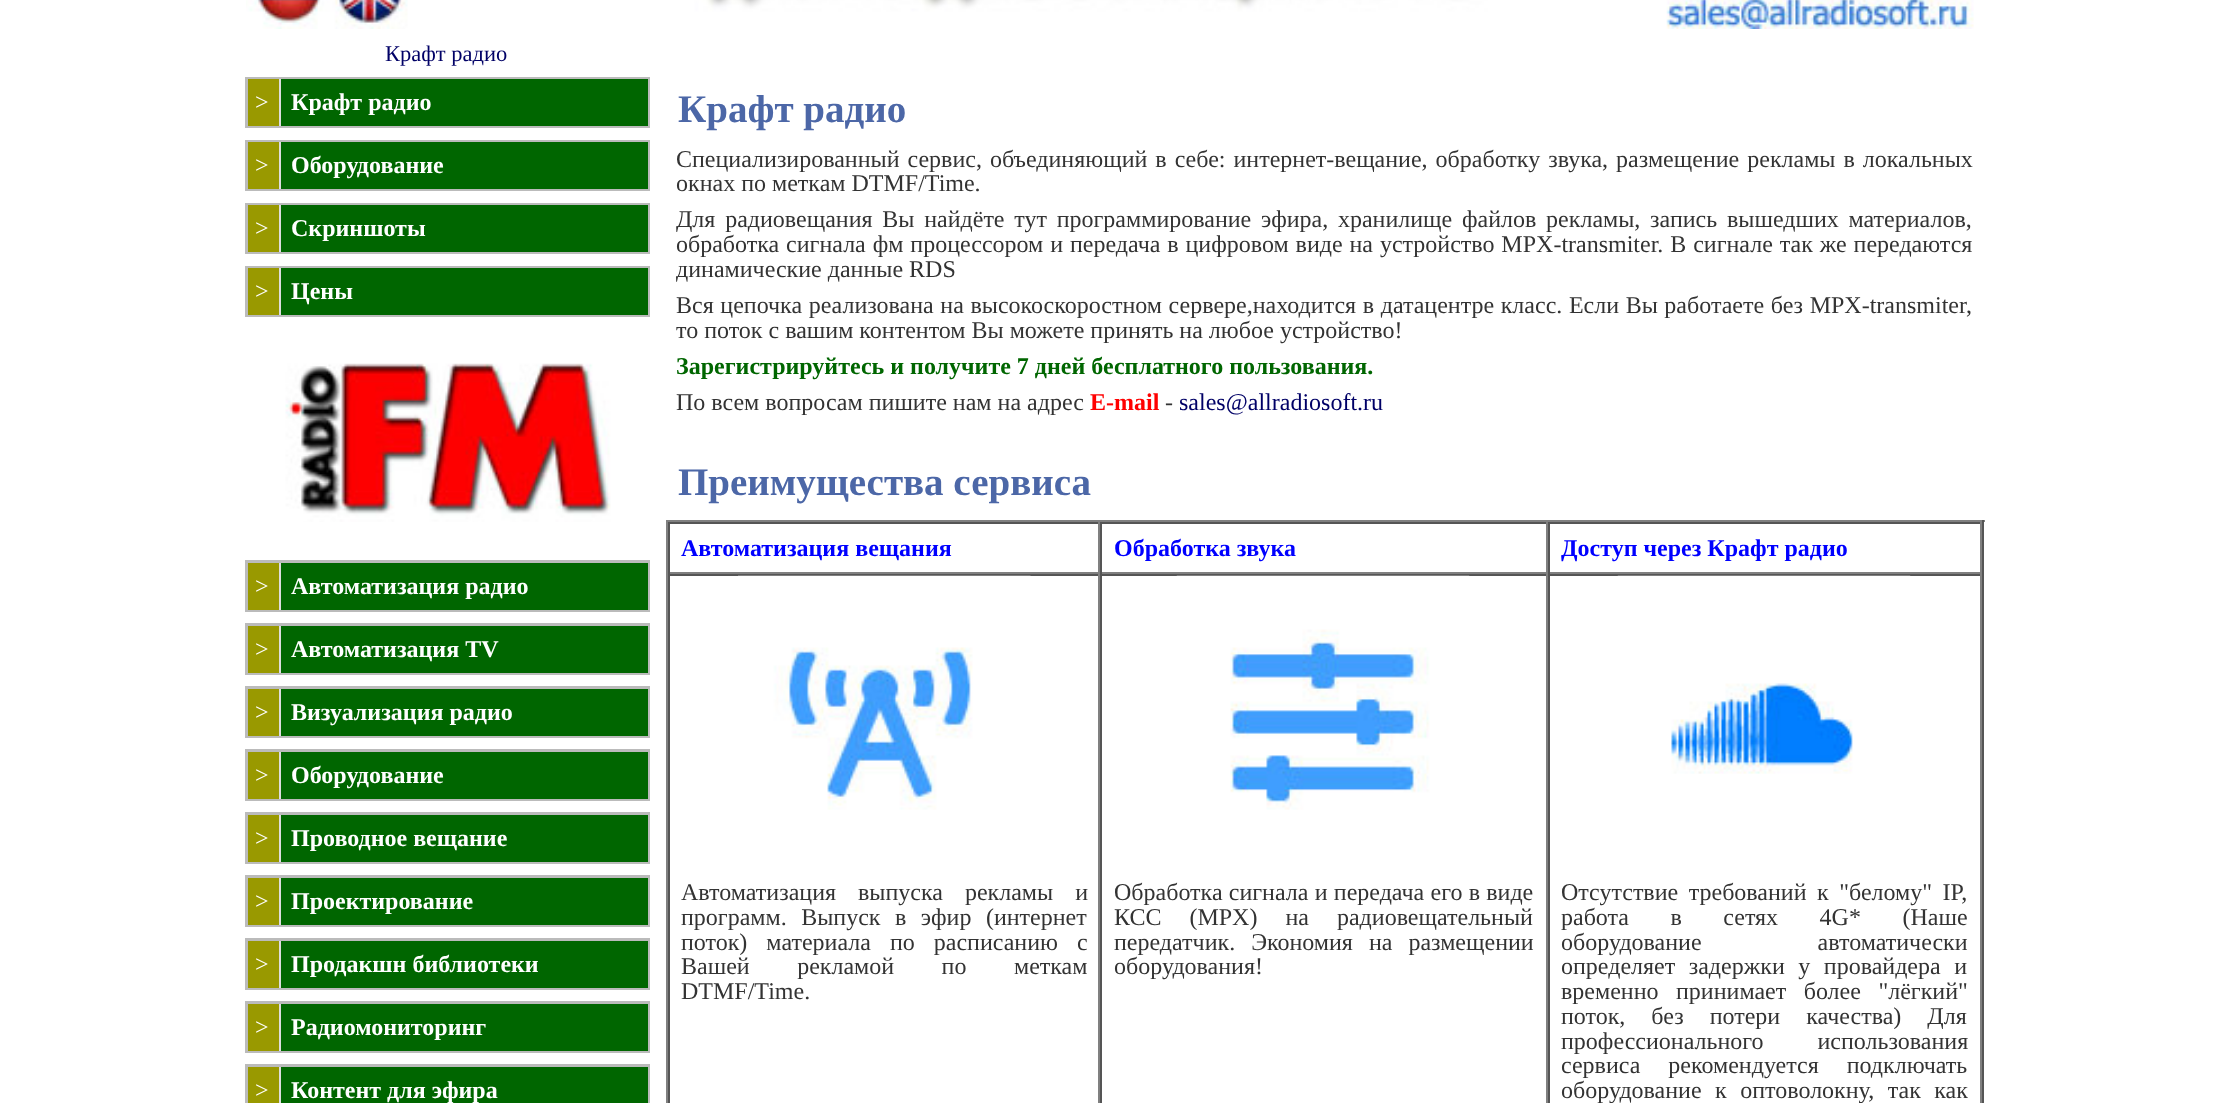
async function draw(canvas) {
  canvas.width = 2220;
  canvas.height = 1103;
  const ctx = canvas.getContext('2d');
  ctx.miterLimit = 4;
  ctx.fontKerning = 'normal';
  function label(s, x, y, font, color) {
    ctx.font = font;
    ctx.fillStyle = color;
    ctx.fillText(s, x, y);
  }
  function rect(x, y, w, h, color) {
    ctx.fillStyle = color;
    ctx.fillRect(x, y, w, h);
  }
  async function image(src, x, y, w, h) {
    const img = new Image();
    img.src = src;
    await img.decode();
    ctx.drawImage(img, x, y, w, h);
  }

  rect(0, 0, 2220, 1103, '#fff');
  await image('assets/img1.png', 246, 0, 1728, 29);
  label('Крафт радио', 385, 61, '22.5px Liberation Serif', '#006');
  rect(245, 77, 405, 51, '#bbb');
  rect(279, 79, 2, 47, '#ddd');
  rect(248, 79, 31, 47, '#990');
  label('>', 255, 110, '24px Liberation Serif', '#fff');
  rect(281, 79, 367, 47, '#060');
  label('Крафт радио', 291, 110, 'bold 24px Liberation Serif', '#fff');
  rect(245, 140, 405, 51, '#bbb');
  rect(279, 142, 2, 47, '#ddd');
  rect(248, 142, 31, 47, '#990');
  label('>', 255, 173, '24px Liberation Serif', '#fff');
  rect(281, 142, 367, 47, '#060');
  label('Оборудование', 291, 173, 'bold 24px Liberation Serif', '#fff');
  rect(245, 203, 405, 51, '#bbb');
  rect(279, 205, 2, 47, '#ddd');
  rect(248, 205, 31, 47, '#990');
  label('>', 255, 236, '24px Liberation Serif', '#fff');
  rect(281, 205, 367, 47, '#060');
  label('Скриншоты', 291, 236, 'bold 24px Liberation Serif', '#fff');
  rect(245, 266, 405, 51, '#bbb');
  rect(279, 268, 2, 47, '#ddd');
  rect(248, 268, 31, 47, '#990');
  label('>', 255, 299, '24px Liberation Serif', '#fff');
  rect(281, 268, 367, 47, '#060');
  label('Цены', 291, 299, 'bold 24px Liberation Serif', '#fff');
  await image('assets/img2.png', 285, 363, 326, 159);
  rect(245, 560, 405, 52, '#bbb');
  rect(279, 563, 2, 47, '#ddd');
  rect(248, 563, 31, 47, '#990');
  label('>', 255, 594, '24px Liberation Serif', '#fff');
  rect(281, 563, 367, 47, '#060');
  label('Автоматизация радио', 291, 594, 'bold 24px Liberation Serif', '#fff');
  rect(245, 623, 405, 52, '#bbb');
  rect(279, 626, 2, 47, '#ddd');
  rect(248, 626, 31, 47, '#990');
  label('>', 255, 657, '24px Liberation Serif', '#fff');
  rect(281, 626, 367, 47, '#060');
  label('Автоматизация TV', 291, 657, 'bold 24px Liberation Serif', '#fff');
  rect(245, 686, 405, 52, '#bbb');
  rect(279, 689, 2, 47, '#ddd');
  rect(248, 689, 31, 47, '#990');
  label('>', 255, 720, '24px Liberation Serif', '#fff');
  rect(281, 689, 367, 47, '#060');
  label('Визуализация радио', 291, 720, 'bold 24px Liberation Serif', '#fff');
  rect(245, 749, 405, 52, '#bbb');
  rect(279, 752, 2, 47, '#ddd');
  rect(248, 752, 31, 47, '#990');
  label('>', 255, 783, '24px Liberation Serif', '#fff');
  rect(281, 752, 367, 47, '#060');
  label('Оборудование', 291, 783, 'bold 24px Liberation Serif', '#fff');
  rect(245, 812, 405, 52, '#bbb');
  rect(279, 815, 2, 47, '#ddd');
  rect(248, 815, 31, 47, '#990');
  label('>', 255, 846, '24px Liberation Serif', '#fff');
  rect(281, 815, 367, 47, '#060');
  label('Проводное вещание', 291, 846, 'bold 24px Liberation Serif', '#fff');
  rect(245, 875, 405, 52, '#bbb');
  rect(279, 878, 2, 47, '#ddd');
  rect(248, 878, 31, 47, '#990');
  label('>', 255, 909, '24px Liberation Serif', '#fff');
  rect(281, 878, 367, 47, '#060');
  label('Проектирование', 291, 909, 'bold 24px Liberation Serif', '#fff');
  rect(245, 938, 405, 52, '#bbb');
  rect(279, 941, 2, 47, '#ddd');
  rect(248, 941, 31, 47, '#990');
  label('>', 255, 972, '24px Liberation Serif', '#fff');
  rect(281, 941, 367, 47, '#060');
  label('Продакшн библиотеки', 291, 972, 'bold 24px Liberation Serif', '#fff');
  rect(245, 1001, 405, 52, '#bbb');
  rect(279, 1004, 2, 47, '#ddd');
  rect(248, 1004, 31, 47, '#990');
  label('>', 255, 1035, '24px Liberation Serif', '#fff');
  rect(281, 1004, 367, 47, '#060');
  label('Радиомониторинг', 291, 1035, 'bold 24px Liberation Serif', '#fff');
  rect(245, 1064, 405, 39, '#bbb');
  rect(279, 1067, 2, 36, '#ddd');
  rect(248, 1067, 31, 36, '#990');
  label('>', 255, 1098, '24px Liberation Serif', '#fff');
  rect(281, 1067, 367, 36, '#060');
  label('Контент для эфира', 291, 1098, 'bold 24px Liberation Serif', '#fff');
  label('Крафт радио', 678, 122, 'bold 39px Liberation Serif', '#4c67a7');
  ctx.wordSpacing = '2px';
  label('Специализированный сервис, объединяющий в себе: интернет-вещание, обработку звука, размещение рекламы в локальных', 676, 167, '24px Liberation Serif', '#333');
  ctx.wordSpacing = '0px';
  label('окнах по меткам DTMF/Time.', 676, 191, '24px Liberation Serif', '#333');
  ctx.wordSpacing = '3.75px';
  label('Для радиовещания Вы найдёте тут программирование эфира, хранилище файлов рекламы, запись вышедших материалов,', 676, 227, '24px Liberation Serif', '#333');
  ctx.wordSpacing = '0.9px';
  label('обработка сигнала фм процессором и передача в цифровом виде на устройство MPX-transmiter. В сигнале так же передаются', 676, 252, '24px Liberation Serif', '#333');
  ctx.wordSpacing = '0px';
  label('динамические данные RDS', 676, 277, '24px Liberation Serif', '#333');
  ctx.wordSpacing = '0.6px';
  label('Вся цепочка реализована на высокоскоростном сервере,находится в датацентре класс. Если Вы работаете без MPX-transmiter,', 676, 313, '24px Liberation Serif', '#333');
  ctx.wordSpacing = '0px';
  label('то поток с вашим контентом Вы можете принять на любое устройство!', 676, 338, '24px Liberation Serif', '#333');
  label('Зарегистрируйтесь и получите 7 дней бесплатного пользования.', 676, 374, 'bold 24px Liberation Serif', '#060');
  label('По всем вопросам пишите нам на адрес', 676, 410, '24px Liberation Serif', '#333');
  label('E-mail', 1090, 410, 'bold 24px Liberation Serif', '#f00');
  label('-', 1165, 410, '24px Liberation Serif', '#333');
  label('sales@allradiosoft.ru', 1179, 410, '24px Liberation Serif', '#006');
  label('Преимущества сервиса', 678, 495, 'bold 39px Liberation Serif', '#4c67a7');
  rect(666, 520, 1319, 2, '#808080');
  rect(1982, 520, 2, 583, '#555');
  rect(666, 520, 2, 583, '#808080');
  rect(668, 522, 1314, 2, '#555');
  rect(1098, 522, 2, 52, '#808080');
  rect(668, 572, 432, 2, '#808080');
  rect(668, 522, 2, 52, '#555');
  label('Автоматизация вещания', 681, 556, 'bold 24px Liberation Serif', '#00f');
  rect(1546, 522, 2, 52, '#808080');
  rect(1100, 572, 448, 2, '#808080');
  rect(1100, 522, 2, 52, '#555');
  label('Обработка звука', 1114, 556, 'bold 24px Liberation Serif', '#00f');
  rect(1980, 522, 2, 52, '#808080');
  rect(1548, 572, 434, 2, '#808080');
  rect(1548, 522, 2, 52, '#555');
  label('Доступ через Крафт радио', 1561, 556, 'bold 24px Liberation Serif', '#00f');
  rect(668, 574, 1314, 2, '#555');
  rect(1098, 574, 2, 529, '#808080');
  rect(668, 574, 2, 529, '#555');
  await image('assets/img3.png', 738, 575, 293, 235);
  ctx.wordSpacing = '16px';
  label('Автоматизация выпуска рекламы и', 681, 900, '24px Liberation Serif', '#333');
  ctx.wordSpacing = '8.5px';
  label('программ. Выпуск в эфир (интернет', 681, 925, '24px Liberation Serif', '#333');
  ctx.wordSpacing = '13px';
  label('поток) материала по расписанию с', 681, 950, '24px Liberation Serif', '#333');
  ctx.wordSpacing = '41.5px';
  label('Вашей рекламой по меткам', 681, 974, '24px Liberation Serif', '#333');
  ctx.wordSpacing = '0px';
  label('DTMF/Time.', 681, 999, '24px Liberation Serif', '#333');
  rect(1546, 574, 2, 529, '#808080');
  rect(1100, 574, 2, 529, '#555');
  await image('assets/img4.png', 1176, 575, 294, 235);
  ctx.wordSpacing = '0.25px';
  label('Обработка сигнала и передача его в виде', 1114, 900, '24px Liberation Serif', '#333');
  ctx.wordSpacing = '22px';
  label('КСС (MPX) на радиовещательный', 1114, 925, '24px Liberation Serif', '#333');
  ctx.wordSpacing = '10px';
  label('передатчик. Экономия на размещении', 1114, 950, '24px Liberation Serif', '#333');
  ctx.wordSpacing = '0px';
  label('оборудования!', 1114, 974, '24px Liberation Serif', '#333');
  rect(1980, 574, 2, 529, '#808080');
  rect(1548, 574, 2, 529, '#555');
  await image('assets/img5.png', 1617, 575, 294, 199);
  ctx.wordSpacing = '4.5px';
  label('Отсутствие требований к "белому" IP,', 1561, 900, '24px Liberation Serif', '#333');
  ctx.wordSpacing = '35.5px';
  label('работа в сетях 4G* (Наше', 1561, 925, '24px Liberation Serif', '#333');
  ctx.wordSpacing = '110px';
  label('оборудование автоматически', 1561, 950, '24px Liberation Serif', '#333');
  ctx.wordSpacing = '7.5px';
  label('определяет задержки у провайдера и', 1561, 974, '24px Liberation Serif', '#333');
  ctx.wordSpacing = '11.5px';
  label('временно принимает более "лёгкий"', 1561, 999, '24px Liberation Serif', '#333');
  ctx.wordSpacing = '20px';
  label('поток, без потери качества) Для', 1561, 1024, '24px Liberation Serif', '#333');
  ctx.wordSpacing = '48px';
  label('профессионального использования', 1561, 1049, '24px Liberation Serif', '#333');
  ctx.wordSpacing = '22px';
  label('сервиса рекомендуется подключать', 1561, 1073, '24px Liberation Serif', '#333');
  ctx.wordSpacing = '7.5px';
  label('оборудование к оптоволокну, так как', 1561, 1098, '24px Liberation Serif', '#333');
}

draw(document.querySelector('canvas'));
